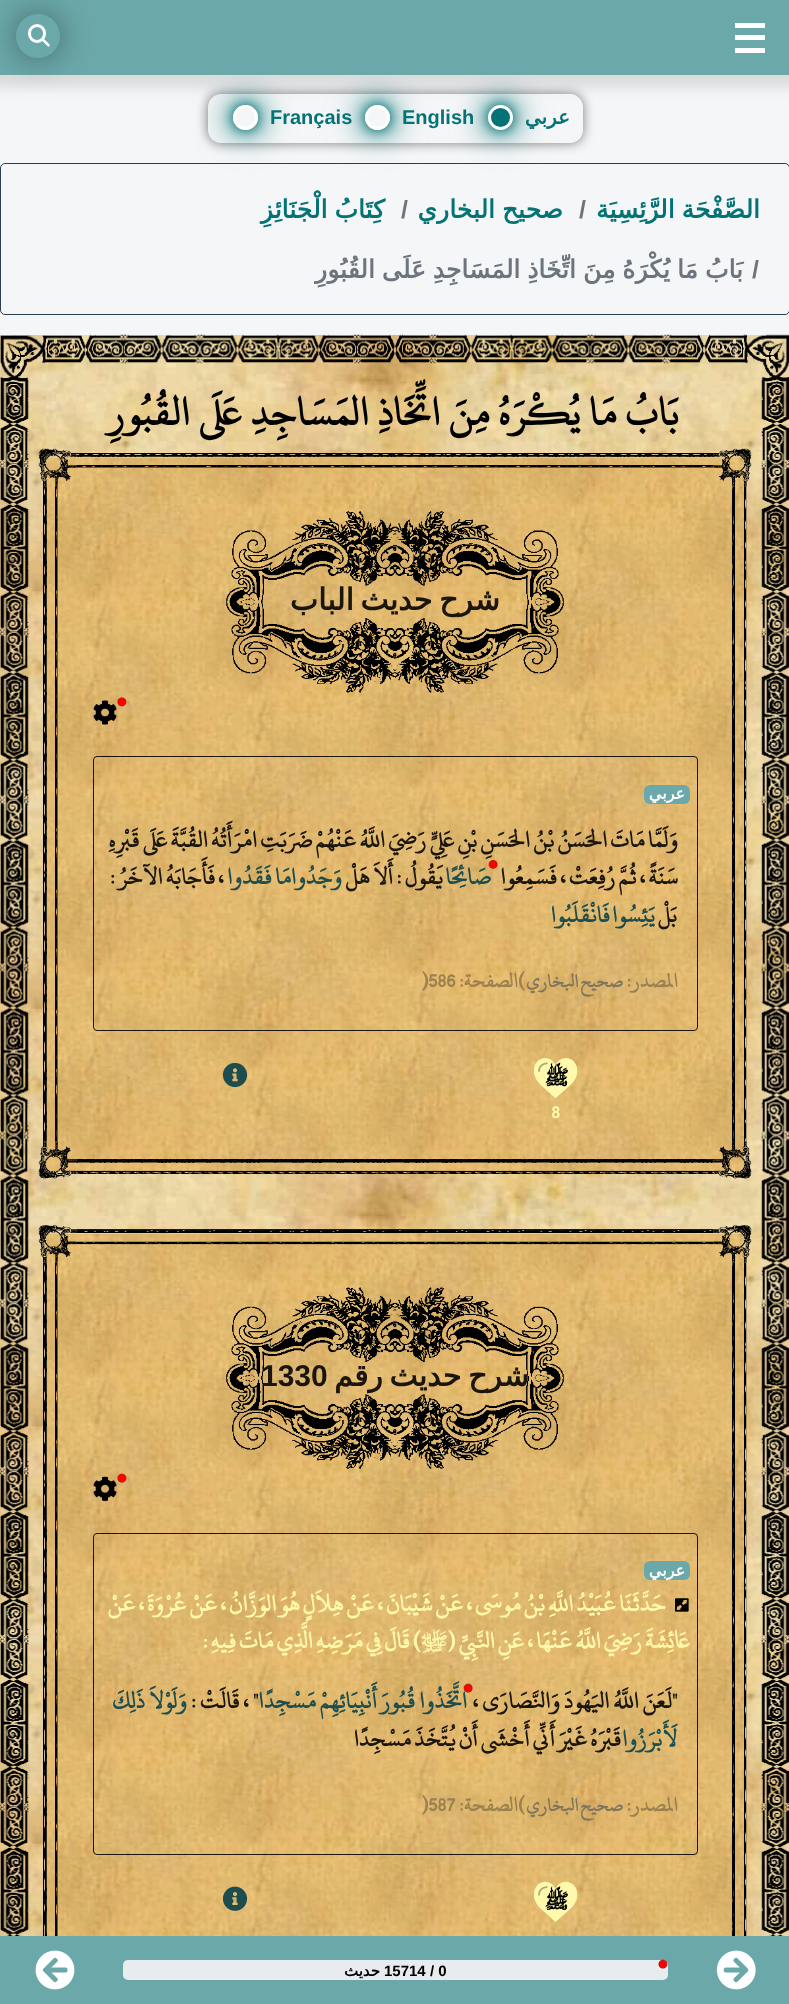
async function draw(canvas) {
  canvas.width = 789;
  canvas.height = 2004;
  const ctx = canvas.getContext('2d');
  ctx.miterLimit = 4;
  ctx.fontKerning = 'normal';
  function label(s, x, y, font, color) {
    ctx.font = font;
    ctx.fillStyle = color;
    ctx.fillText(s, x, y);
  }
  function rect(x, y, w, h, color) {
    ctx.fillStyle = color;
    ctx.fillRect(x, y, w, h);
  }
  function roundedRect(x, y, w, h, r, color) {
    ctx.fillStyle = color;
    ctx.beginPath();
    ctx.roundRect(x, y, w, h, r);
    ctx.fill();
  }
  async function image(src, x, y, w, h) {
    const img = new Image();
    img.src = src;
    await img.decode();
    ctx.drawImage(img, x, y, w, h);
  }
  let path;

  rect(0, 0, 789, 2004, '#f5f6f7');
  ctx.save();
  path = new Path2D('M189 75H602V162H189ZM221 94H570C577 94 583 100 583 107V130C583 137 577 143 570 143H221C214 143 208 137 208 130V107C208 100 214 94 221 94Z');
  ctx.clip(path, 'evenodd');
  ctx.fillStyle = '#00000080';
  ctx.filter = 'blur(6px)';
  ctx.beginPath();
  ctx.roundRect(208, 94, 375, 49, 13);
  ctx.fill();
  ctx.filter = 'none';
  ctx.restore();
  ctx.beginPath();
  ctx.roundRect(0.5, 163.5, 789, 151, 4.5);
  ctx.strokeStyle = '#2c3e50';
  ctx.stroke();
  ctx.fillStyle = '#037375';
  ctx.filter = 'blur(19px)';
  ctx.beginPath();
  ctx.roundRect(488, 105, 25, 25, 12.5);
  ctx.fill();
  ctx.filter = 'none';
  ctx.filter = 'blur(12.5px)';
  ctx.beginPath();
  ctx.roundRect(488, 105, 25, 25, 12.5);
  ctx.fill();
  ctx.filter = 'none';
  ctx.filter = 'blur(6px)';
  ctx.beginPath();
  ctx.roundRect(488, 105, 25, 25, 12.5);
  ctx.fill();
  ctx.filter = 'none';
  ctx.beginPath();
  ctx.arc(500.5, 117.5, 11, 0, 2 * Math.PI);
  ctx.fill();
  ctx.strokeStyle = '#fff';
  ctx.lineWidth = 3;
  ctx.stroke();
  ctx.save();
  path = new Path2D('M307 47H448V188H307ZM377.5 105C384.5 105 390 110.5 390 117.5C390 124.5 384.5 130 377.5 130C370.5 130 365 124.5 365 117.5C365 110.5 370.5 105 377.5 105Z');
  ctx.clip(path, 'evenodd');
  ctx.filter = 'blur(19px)';
  ctx.beginPath();
  ctx.roundRect(365, 105, 25, 25, 12.5);
  ctx.fill();
  ctx.filter = 'none';
  ctx.restore();
  ctx.save();
  path = new Path2D('M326 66H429V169H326ZM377.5 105C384.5 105 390 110.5 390 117.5C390 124.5 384.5 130 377.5 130C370.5 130 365 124.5 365 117.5C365 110.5 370.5 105 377.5 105Z');
  ctx.clip(path, 'evenodd');
  ctx.filter = 'blur(12.5px)';
  ctx.beginPath();
  ctx.roundRect(365, 105, 25, 25, 12.5);
  ctx.fill();
  ctx.filter = 'none';
  ctx.restore();
  ctx.save();
  path = new Path2D('M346 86H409V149H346ZM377.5 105C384.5 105 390 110.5 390 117.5C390 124.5 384.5 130 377.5 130C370.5 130 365 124.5 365 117.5C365 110.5 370.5 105 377.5 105Z');
  ctx.clip(path, 'evenodd');
  ctx.filter = 'blur(6px)';
  ctx.beginPath();
  ctx.roundRect(365, 105, 25, 25, 12.5);
  ctx.fill();
  ctx.filter = 'none';
  ctx.restore();
  ctx.beginPath();
  ctx.arc(377.5, 117.5, 11, 0, 2 * Math.PI);
  ctx.stroke();
  ctx.save();
  path = new Path2D('M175 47H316V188H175ZM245.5 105C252.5 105 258 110.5 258 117.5C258 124.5 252.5 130 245.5 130C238.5 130 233 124.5 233 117.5C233 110.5 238.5 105 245.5 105Z');
  ctx.clip(path, 'evenodd');
  ctx.filter = 'blur(19px)';
  ctx.beginPath();
  ctx.roundRect(233, 105, 25, 25, 12.5);
  ctx.fill();
  ctx.filter = 'none';
  ctx.restore();
  ctx.save();
  path = new Path2D('M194 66H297V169H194ZM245.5 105C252.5 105 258 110.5 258 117.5C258 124.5 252.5 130 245.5 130C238.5 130 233 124.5 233 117.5C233 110.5 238.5 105 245.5 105Z');
  ctx.clip(path, 'evenodd');
  ctx.filter = 'blur(12.5px)';
  ctx.beginPath();
  ctx.roundRect(233, 105, 25, 25, 12.5);
  ctx.fill();
  ctx.filter = 'none';
  ctx.restore();
  ctx.save();
  path = new Path2D('M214 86H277V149H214ZM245.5 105C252.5 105 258 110.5 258 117.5C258 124.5 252.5 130 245.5 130C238.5 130 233 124.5 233 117.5C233 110.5 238.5 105 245.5 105Z');
  ctx.clip(path, 'evenodd');
  ctx.filter = 'blur(6px)';
  ctx.beginPath();
  ctx.roundRect(233, 105, 25, 25, 12.5);
  ctx.fill();
  ctx.filter = 'none';
  ctx.restore();
  ctx.beginPath();
  ctx.arc(245.5, 117.5, 11, 0, 2 * Math.PI);
  ctx.stroke();
  ctx.fillStyle = '#0000001a';
  ctx.filter = 'blur(6px)';
  ctx.beginPath();
  ctx.rect(-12, -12, 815, 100);
  ctx.fill();
  ctx.filter = 'none';
  rect(0, 0, 789, 75, '#6ba8a9');
  rect(735, 23, 30, 5, '#fff');
  rect(735, 48, 30, 5, '#fff');
  rect(735, 35, 30, 5, '#fff');
  ctx.save();
  path = new Path2D('M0 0H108V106H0ZM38 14C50 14 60 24 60 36C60 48 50 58 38 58C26 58 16 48 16 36C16 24 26 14 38 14Z');
  ctx.clip(path, 'evenodd');
  ctx.fillStyle = '#00000066';
  ctx.filter = 'blur(15.5px)';
  ctx.beginPath();
  ctx.roundRect(16, 14, 44, 44, 22);
  ctx.fill();
  ctx.filter = 'none';
  ctx.restore();
  path = new Path2D('M43 38L50 45L48.5 47L41.5 40Z');
  ctx.fill(path);
  ctx.beginPath();
  ctx.roundRect(29.5, 25.5, 15, 16, 7.5);
  ctx.stroke();
  ctx.direction = 'rtl';
  label('عربي', 570, 124, 'bold 20px DejaVu Sans', '#037375');
  ctx.direction = 'ltr';
  label('English', 402, 124, 'bold 20px Liberation Sans', '#037375');
  label('Français', 270, 124, 'bold 20px Liberation Sans', '#037375');
  ctx.wordSpacing = '-1px';
  ctx.direction = 'rtl';
  label('الصَّفْحَة الرَّئِسِيَة', 760, 218, 'bold 25px DejaVu Sans', '#037375');
  ctx.wordSpacing = '0px';
  ctx.direction = 'ltr';
  label('/', 579, 218, 'bold 25px Liberation Sans', '#6c757d');
  ctx.wordSpacing = '-1px';
  ctx.direction = 'rtl';
  label('صحيح البخاري', 563, 218, 'bold 25px DejaVu Sans', '#037375');
  ctx.wordSpacing = '0px';
  ctx.direction = 'ltr';
  label('/', 401, 218, 'bold 25px Liberation Sans', '#6c757d');
  ctx.wordSpacing = '-1px';
  ctx.direction = 'rtl';
  label('كِتَابُ الْجَنَائِزِ', 385, 218, 'bold 25px DejaVu Sans', '#037375');
  ctx.wordSpacing = '0px';
  ctx.direction = 'ltr';
  label('/', 752, 278, 'bold 25px Liberation Sans', '#6c757d');
  ctx.wordSpacing = '-1px';
  ctx.direction = 'rtl';
  label('بَابُ مَا يُكْرَهُ مِنَ اتِّخَاذِ المَسَاجِدِ عَلَى القُبُورِ', 743, 278, 'bold 25px DejaVu Sans', '#6c757d');
  await image('assets/img1.png', 0, 335, 789, 1601);
  await image('assets/img2.png', 0, 334, 789, 1602);
  ctx.wordSpacing = '0px';
  label('بَابُ مَا يُكْرَهُ مِنَ اتِّخَاذِ المَسَاجِدِ عَلَى القُبُورِ', 679, 425, 'bold 43.75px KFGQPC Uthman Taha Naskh', '#000');
  await image('assets/img3.png', 46, 457, 698, 715);
  await image('assets/img4.png', 38, 448, 714, 731);
  await image('assets/img5.png', 226, 511, 338, 182);
  ctx.wordSpacing = '-3px';
  label('شرح حديث الباب', 500, 610, 'bold 30px DejaVu Sans', '#1b160d');
  await image('assets/img6.png', 117, 697, 10, 10);
  await image('assets/img7.png', 93, 700, 24, 25);
  ctx.beginPath();
  ctx.roundRect(93.5, 756.5, 604, 274, 3.5);
  ctx.strokeStyle = '#000000e0';
  ctx.lineWidth = 1;
  ctx.stroke();
  roundedRect(644, 785, 46, 19, 6, '#6ba8a9');
  ctx.wordSpacing = '0px';
  label('عربي', 685, 799, 'bold 16px DejaVu Sans', '#fff');
  ctx.wordSpacing = '-1.75px';
  label('وَلَمَّا مَاتَ الحَسَنُ بْنُ الحَسَنِ بْنِ عَلِيٍّ رَضِيَ اللَّهُ عَنْهُمْ ضَرَبَتِ امْرَأَتُهُ القُبَّةَ عَلَى قَبْرِهِ', 678, 847, 'bold 25px KFGQPC Uthman Taha Naskh', '#1b160d');
  label('سَنَةً ، ثُمَّ رُفِعَتْ ، فَسَمِعُوا', 678, 884, 'bold 25px KFGQPC Uthman Taha Naskh', '#1b160d');
  ctx.wordSpacing = '0px';
  label('صَائِحًا', 491, 884, 'bold 25px KFGQPC Uthman Taha Naskh', '#1d4d4f');
  await image('assets/img8.png', 488, 860, 10, 9);
  ctx.wordSpacing = '-1.75px';
  label('يَقُولُ : أَلاَ هَلْ', 443, 884, 'bold 25px KFGQPC Uthman Taha Naskh', '#1b160d');
  ctx.wordSpacing = '0px';
  label('وَجَدُوا', 342, 884, 'bold 25px KFGQPC Uthman Taha Naskh', '#1d4d4f');
  label('مَا', 291, 884, 'bold 25px KFGQPC Uthman Taha Naskh', '#1d4d4f');
  label('فَقَدُوا', 272, 884, 'bold 25px KFGQPC Uthman Taha Naskh', '#1d4d4f');
  ctx.wordSpacing = '-1.75px';
  label('، فَأَجَابَهُ الآخَرُ :', 224, 884, 'bold 25px KFGQPC Uthman Taha Naskh', '#1b160d');
  ctx.wordSpacing = '0px';
  label('بَلْ', 677, 922, 'bold 25px KFGQPC Uthman Taha Naskh', '#1b160d');
  label('يَئِسُوا', 655, 922, 'bold 25px KFGQPC Uthman Taha Naskh', '#1d4d4f');
  label('فَانْقَلَبُوا', 610, 922, 'bold 25px KFGQPC Uthman Taha Naskh', '#1d4d4f');
  label('المصدر:', 678, 987, 'bold 22px KFGQPC Uthman Taha Naskh', '#9c8150');
  ctx.wordSpacing = '-1.9px';
  label('صحيح البخاري', 623, 987, 'bold 20px KFGQPC Uthman Taha Naskh', '#80755d');
  ctx.wordSpacing = '0px';
  ctx.direction = 'ltr';
  label('(', 518, 987, 'bold 22px KFGQPC Uthman Taha Naskh', '#9c8150');
  ctx.direction = 'rtl';
  label('الصفحة:', 518, 987, 'bold 22px KFGQPC Uthman Taha Naskh', '#9c8150');
  ctx.direction = 'ltr';
  label('586', 428, 987, 'bold 22px KFGQPC Uthman Taha Naskh', '#9c8150');
  label(')', 421, 987, 'bold 22px KFGQPC Uthman Taha Naskh', '#9c8150');
  await image('assets/img9.png', 222, 1062, 26, 26);
  await image('assets/img10.png', 533, 1058, 45, 41);
  label('8', 551, 1118, 'bold 16px DejaVu Sans Mono', '#fff9ad');
  await image('assets/img11.png', 46, 1233, 698, 703);
  await image('assets/img12.png', 38, 1225, 714, 711);
  await image('assets/img13.png', 226, 1287, 338, 182);
  ctx.wordSpacing = '-3px';
  ctx.direction = 'rtl';
  label('شرح حديث رقم', 529, 1386, 'bold 30px DejaVu Sans', '#1b160d');
  ctx.wordSpacing = '0px';
  ctx.direction = 'ltr';
  label('1330', 261, 1386, 'bold 30px Liberation Sans', '#1b160d');
  await image('assets/img14.png', 117, 1473, 10, 10);
  await image('assets/img15.png', 93, 1476, 24, 26);
  ctx.beginPath();
  ctx.roundRect(93.5, 1533.5, 604, 321, 3.5);
  ctx.stroke();
  roundedRect(644, 1561, 46, 19, 6, '#6ba8a9');
  ctx.direction = 'rtl';
  label('عربي', 685, 1576, 'bold 16px DejaVu Sans', '#fff');
  await image('assets/img16.png', 675, 1598, 14, 14);
  ctx.wordSpacing = '-1.9px';
  label('حَدَّثَنَا عُبَيْدُ اللَّهِ بْنُ مُوسَى ، عَنْ شَيْبَانَ ، عَنْ هِلاَلٍ هُوَ الوَزَّانُ ، عَنْ عُرْوَةَ ، عَنْ', 666, 1611, 'bold 25px KFGQPC Uthman Taha Naskh', '#fff9ad');
  label('عَائِشَةَ رَضِيَ اللَّهُ عَنْهَا ، عَنِ النَّبِيِّ (ﷺ) قَالَ فِي مَرَضِهِ الَّذِي مَاتَ فِيهِ :', 690, 1648, 'bold 25px KFGQPC Uthman Taha Naskh', '#fff9ad');
  ctx.wordSpacing = '0px';
  ctx.direction = 'ltr';
  label('"', 672, 1708, 'bold 25px KFGQPC Uthman Taha Naskh', '#1b160d');
  ctx.wordSpacing = '-1px';
  ctx.direction = 'rtl';
  label('لَعَنَ اللَّهُ اليَهُودَ وَالنَّصَارَى ،', 672, 1708, 'bold 25px KFGQPC Uthman Taha Naskh', '#1b160d');
  ctx.wordSpacing = '0px';
  label('اتَّخَذُوا', 467, 1708, 'bold 25px KFGQPC Uthman Taha Naskh', '#1d4d4f');
  await image('assets/img17.png', 463, 1683, 10, 10);
  label('قُبُورَ', 415, 1708, 'bold 25px KFGQPC Uthman Taha Naskh', '#1d4d4f');
  label('أَنْبِيَائِهِمْ', 377, 1708, 'bold 25px KFGQPC Uthman Taha Naskh', '#1d4d4f');
  label('مَسْجِدًا', 316, 1708, 'bold 25px KFGQPC Uthman Taha Naskh', '#1d4d4f');
  ctx.direction = 'ltr';
  label('"', 253, 1708, 'bold 25px KFGQPC Uthman Taha Naskh', '#1b160d');
  ctx.wordSpacing = '-1px';
  ctx.direction = 'rtl';
  label('، قَالَتْ :', 249, 1708, 'bold 25px KFGQPC Uthman Taha Naskh', '#1b160d');
  ctx.wordSpacing = '0px';
  label('وَلَوْلاَ', 187, 1708, 'bold 25px KFGQPC Uthman Taha Naskh', '#1d4d4f');
  label('ذَلِكَ', 145, 1708, 'bold 25px KFGQPC Uthman Taha Naskh', '#1d4d4f');
  label('لَأَبْرَزُوا', 677, 1746, 'bold 25px KFGQPC Uthman Taha Naskh', '#1d4d4f');
  ctx.wordSpacing = '-1.9px';
  label('قَبْرَهُ غَيْرَ أَنِّي أَخْشَى أَنْ يُتَّخَذَ مَسْجِدًا', 621, 1746, 'bold 25px KFGQPC Uthman Taha Naskh', '#1b160d');
  ctx.wordSpacing = '0px';
  label('المصدر:', 678, 1811, 'bold 22px KFGQPC Uthman Taha Naskh', '#9c8150');
  ctx.wordSpacing = '-1.9px';
  label('صحيح البخاري', 623, 1811, 'bold 20px KFGQPC Uthman Taha Naskh', '#80755d');
  ctx.wordSpacing = '0px';
  ctx.direction = 'ltr';
  label('(', 518, 1811, 'bold 22px KFGQPC Uthman Taha Naskh', '#9c8150');
  ctx.direction = 'rtl';
  label('الصفحة:', 518, 1811, 'bold 22px KFGQPC Uthman Taha Naskh', '#9c8150');
  ctx.direction = 'ltr';
  label('587', 428, 1811, 'bold 22px KFGQPC Uthman Taha Naskh', '#9c8150');
  label(')', 421, 1811, 'bold 22px KFGQPC Uthman Taha Naskh', '#9c8150');
  await image('assets/img18.png', 533, 1881, 45, 41);
  await image('assets/img19.png', 222, 1886, 26, 25);
  rect(0, 1936, 789, 68, '#6ba8a9');
  await image('assets/img20.png', 716, 1950, 40, 40);
  roundedRect(123, 1960, 545, 20, 5, '#e9ecef');
  await image('assets/img21.png', 658, 1959, 10, 10);
  label('15714 / 0', 384, 1976, 'bold 15px Liberation Sans', '#000');
  ctx.direction = 'rtl';
  label('حديث', 380, 1976, 'bold 15px DejaVu Sans', '#000');
  await image('assets/img22.png', 35, 1950, 40, 40);
}

draw(document.querySelector('canvas'));
